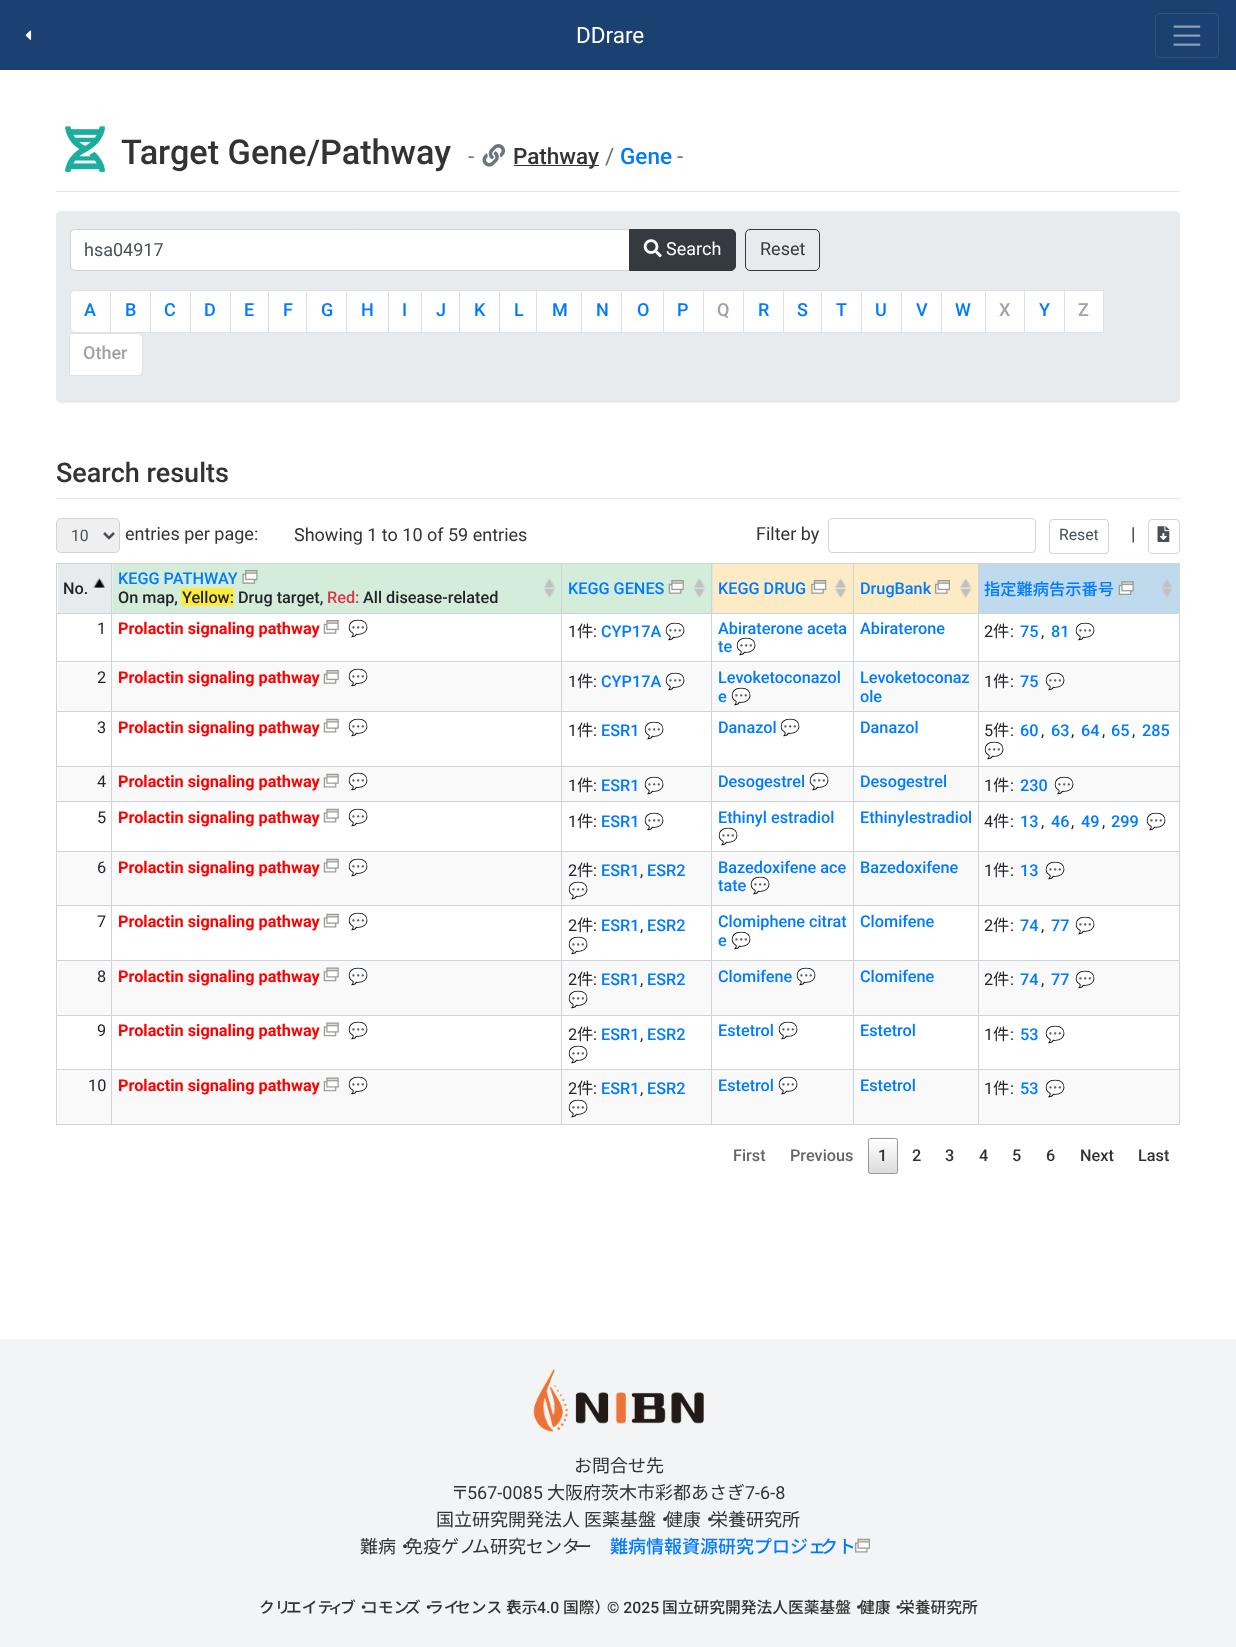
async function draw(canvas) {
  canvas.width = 1236;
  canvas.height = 1647;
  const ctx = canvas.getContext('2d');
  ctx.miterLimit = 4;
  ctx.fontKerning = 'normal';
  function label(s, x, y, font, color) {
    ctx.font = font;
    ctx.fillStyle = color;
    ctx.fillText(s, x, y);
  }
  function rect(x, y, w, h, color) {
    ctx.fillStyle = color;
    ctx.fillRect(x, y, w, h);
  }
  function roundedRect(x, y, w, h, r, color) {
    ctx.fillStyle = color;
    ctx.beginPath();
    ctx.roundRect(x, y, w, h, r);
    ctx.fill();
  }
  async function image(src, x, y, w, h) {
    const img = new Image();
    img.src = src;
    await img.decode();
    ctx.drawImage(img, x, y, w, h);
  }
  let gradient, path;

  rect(0, 0, 1236, 1647, '#fff');
  rect(0, 0, 1236, 70, '#1a4172');
  await image('assets/img1.png', 25, 30, 7, 10);
  label('DDrare', 576, 43, '22.5px Roboto', '#fff');
  ctx.beginPath();
  ctx.roundRect(1155.5, 13.5, 63, 44, 4.5);
  ctx.strokeStyle = '#315480';
  ctx.stroke();
  await image('assets/img2.png', 1173, 25, 28, 21);
  await image('assets/img3.png', 65, 126, 40, 46);
  label('Target Gene/Pathway', 121, 164, '500 34.25px Roboto', '#333');
  label('-', 468, 164, '22.5px Roboto', '#6c757d');
  await image('assets/img4.png', 482, 144, 23, 23);
  rect(514, 165, 85, 1, '#333');
  label('Pathway', 513, 164, '500 22.5px Roboto', '#333');
  label('/', 605, 164, '22.5px Roboto', '#6c757d');
  label('Gene', 620, 164, '500 22.5px Roboto', '#007bff');
  label('-', 677, 164, '22.5px Roboto', '#6c757d');
  rect(56, 191, 1124, 1, '#e6e6e6');
  roundedRect(56, 211, 1124, 192, 5, '#e7ebed');
  ctx.fillStyle = '#fff';
  ctx.beginPath();
  ctx.roundRect(71, 230, 558, 40, [3, 0, 0, 3]);
  ctx.fill();
  ctx.beginPath();
  ctx.roundRect(70.5, 229.5, 559, 41, [4.5, 0, 0, 4.5]);
  ctx.strokeStyle = '#ced4da';
  ctx.stroke();
  label('hsa04917', 84, 256, '18px Roboto', '#495057');
  ctx.fillStyle = '#343a40';
  ctx.beginPath();
  ctx.roundRect(629.5, 229.5, 106, 41, [0, 4.5, 4.5, 0]);
  ctx.fill();
  ctx.strokeStyle = '#343a40';
  ctx.stroke();
  await image('assets/img5.png', 643, 239, 19, 19);
  label('Search', 666, 255, '18px Roboto', '#fff');
  ctx.beginPath();
  ctx.roundRect(745.5, 229.5, 74, 41, 4.5);
  ctx.stroke();
  label('Reset', 760, 255, '18px Roboto', '#343a40');
  ctx.fillStyle = '#fff';
  ctx.beginPath();
  ctx.roundRect(70.5, 290.5, 40, 42, [4.5, 0, 0, 4.5]);
  ctx.fill();
  ctx.strokeStyle = '#dee2e6';
  ctx.stroke();
  label('A', 84, 316, '500 18px Roboto', '#007bff');
  ctx.fillStyle = '#fff';
  ctx.beginPath();
  ctx.rect(110.5, 290.5, 40, 42);
  ctx.fill();
  ctx.stroke();
  label('B', 125, 316, '500 18px Roboto', '#007bff');
  ctx.fillStyle = '#fff';
  ctx.beginPath();
  ctx.rect(150.5, 290.5, 40, 42);
  ctx.fill();
  ctx.stroke();
  label('C', 164, 316, '500 18px Roboto', '#007bff');
  ctx.fillStyle = '#fff';
  ctx.beginPath();
  ctx.rect(190.5, 290.5, 40, 42);
  ctx.fill();
  ctx.stroke();
  label('D', 204, 316, '500 18px Roboto', '#007bff');
  ctx.fillStyle = '#fff';
  ctx.beginPath();
  ctx.rect(230.5, 290.5, 38, 42);
  ctx.fill();
  ctx.stroke();
  label('E', 244, 316, '500 18px Roboto', '#007bff');
  rect(269, 291, 37, 41, '#fff');
  ctx.strokeRect(268.5, 290.5, 39, 42);
  label('F', 283, 316, '500 18px Roboto', '#007bff');
  rect(307, 291, 39, 41, '#fff');
  ctx.strokeRect(306.5, 290.5, 41, 42);
  label('G', 321, 316, '500 18px Roboto', '#007bff');
  ctx.fillStyle = '#fff';
  ctx.beginPath();
  ctx.rect(346.5, 290.5, 42, 42);
  ctx.fill();
  ctx.stroke();
  label('H', 361, 316, '500 18px Roboto', '#007bff');
  rect(389, 291, 32, 41, '#fff');
  ctx.strokeRect(388.5, 290.5, 34, 42);
  label('I', 402, 316, '500 18px Roboto', '#007bff');
  ctx.fillStyle = '#fff';
  ctx.beginPath();
  ctx.rect(421.5, 290.5, 38, 42);
  ctx.fill();
  ctx.stroke();
  label('J', 436, 316, '500 18px Roboto', '#007bff');
  ctx.fillStyle = '#fff';
  ctx.beginPath();
  ctx.rect(459.5, 290.5, 40, 42);
  ctx.fill();
  ctx.stroke();
  label('K', 474, 316, '500 18px Roboto', '#007bff');
  rect(500, 291, 36, 41, '#fff');
  ctx.strokeRect(499.5, 290.5, 38, 42);
  label('L', 514, 316, '500 18px Roboto', '#007bff');
  rect(537, 291, 44, 41, '#fff');
  ctx.strokeRect(536.5, 290.5, 46, 42);
  label('M', 552, 316, '500 18px Roboto', '#007bff');
  rect(582, 291, 39, 41, '#fff');
  ctx.strokeRect(581.5, 290.5, 41, 42);
  label('N', 596, 316, '500 18px Roboto', '#007bff');
  ctx.fillStyle = '#fff';
  ctx.beginPath();
  ctx.rect(621.5, 290.5, 42, 42);
  ctx.fill();
  ctx.stroke();
  label('O', 637, 316, '500 18px Roboto', '#007bff');
  ctx.fillStyle = '#fff';
  ctx.beginPath();
  ctx.rect(663.5, 290.5, 40, 42);
  ctx.fill();
  ctx.stroke();
  label('P', 677, 316, '500 18px Roboto', '#007bff');
  ctx.fillStyle = '#fff';
  ctx.beginPath();
  ctx.rect(703.5, 290.5, 40, 42);
  ctx.fill();
  ctx.stroke();
  label('Q', 717, 316, '500 18px Roboto', '#a2a2a2');
  ctx.fillStyle = '#fff';
  ctx.beginPath();
  ctx.rect(743.5, 290.5, 40, 42);
  ctx.fill();
  ctx.stroke();
  label('R', 758, 316, '500 18px Roboto', '#007bff');
  rect(784, 291, 37, 41, '#fff');
  ctx.strokeRect(783.5, 290.5, 39, 42);
  label('S', 797, 316, '500 18px Roboto', '#007bff');
  rect(822, 291, 39, 41, '#fff');
  ctx.strokeRect(821.5, 290.5, 41, 42);
  label('T', 836, 316, '500 18px Roboto', '#007bff');
  rect(862, 291, 39, 41, '#fff');
  ctx.strokeRect(861.5, 290.5, 41, 42);
  label('U', 875, 316, '500 18px Roboto', '#007bff');
  rect(902, 291, 39, 41, '#fff');
  ctx.strokeRect(901.5, 290.5, 41, 42);
  label('V', 916, 316, '500 18px Roboto', '#007bff');
  ctx.fillStyle = '#fff';
  ctx.beginPath();
  ctx.rect(941.5, 290.5, 44, 42);
  ctx.fill();
  ctx.stroke();
  label('W', 955, 316, '500 18px Roboto', '#007bff');
  ctx.fillStyle = '#fff';
  ctx.beginPath();
  ctx.rect(985.5, 290.5, 39, 42);
  ctx.fill();
  ctx.stroke();
  label('X', 999, 316, '500 18px Roboto', '#a2a2a2');
  ctx.fillStyle = '#fff';
  ctx.beginPath();
  ctx.rect(1024.5, 290.5, 40, 42);
  ctx.fill();
  ctx.stroke();
  label('Y', 1039, 316, '500 18px Roboto', '#007bff');
  ctx.fillStyle = '#fff';
  ctx.beginPath();
  ctx.rect(1064.5, 290.5, 39, 42);
  ctx.fill();
  ctx.stroke();
  label('Z', 1078, 316, '500 18px Roboto', '#a2a2a2');
  ctx.fillStyle = '#fff';
  ctx.beginPath();
  ctx.roundRect(69.5, 333.5, 73, 42, [0, 4.5, 4.5, 0]);
  ctx.fill();
  ctx.stroke();
  label('Other', 83, 359, '500 18px Roboto', '#a2a2a2');
  label('Search results', 56, 482, '500 27px Roboto', '#333');
  rect(56, 498, 1124, 1, '#e6e6e6');
  ctx.fillStyle = '#efefef';
  ctx.beginPath();
  ctx.roundRect(56.5, 518.5, 63, 34, 4.5);
  ctx.fill();
  ctx.strokeStyle = '#ced4da';
  ctx.stroke();
  path = new Path2D('M104 533L109 538L114 533');
  ctx.strokeStyle = '#495057';
  ctx.lineWidth = 2.5;
  ctx.stroke(path);
  label('10', 71, 541, '15.75px Roboto', '#495057');
  label('entries per page:', 125, 540, '18px Roboto', '#333');
  label('Showing 1 to 10 of 59 entries', 294, 541, '18px Roboto', '#333');
  label('Filter by', 756, 540, '18px Roboto', '#333');
  ctx.beginPath();
  ctx.roundRect(828.5, 518.5, 207, 34, 3.5);
  ctx.strokeStyle = '#ced4da';
  ctx.lineWidth = 1;
  ctx.stroke();
  ctx.beginPath();
  ctx.roundRect(1049.5, 519.5, 59, 34, 3.5);
  ctx.stroke();
  label('Reset', 1059, 540, '15.75px Roboto', '#495057');
  label('|', 1131, 540, '18px Roboto', '#333');
  ctx.beginPath();
  ctx.roundRect(1148.5, 519.5, 31, 34, 3.5);
  ctx.stroke();
  await image('assets/img6.png', 1157, 526, 13, 16);
  rect(58, 564, 55, 49, '#e7ebed');
  await image('assets/img7.png', 93, 578, 13, 10);
  rect(978, 563, 202, 1, '#ced4da');
  rect(978, 613, 202, 1, '#ced4da');
  rect(978, 661, 202, 1, '#ced4da');
  rect(58, 663, 1121, 48, '#f9f9f9');
  rect(978, 711, 202, 1, '#ced4da');
  rect(58, 767, 1121, 36, '#f9f9f9');
  rect(978, 766, 202, 1, '#ced4da');
  rect(978, 801, 202, 1, '#ced4da');
  rect(58, 852, 1121, 53, '#f9f9f9');
  rect(978, 851, 202, 1, '#ced4da');
  rect(978, 905, 202, 1, '#ced4da');
  rect(978, 960, 202, 1, '#ced4da');
  rect(58, 961, 1121, 54, '#f9f9f9');
  rect(978, 1015, 202, 1, '#ced4da');
  rect(978, 1069, 202, 1, '#ced4da');
  rect(58, 1070, 1121, 54, '#f9f9f9');
  rect(1179, 1069, 1, 56, '#ced4da');
  rect(978, 1124, 202, 1, '#ced4da');
  rect(978, 1069, 1, 56, '#ced4da');
  rect(853, 1069, 126, 1, '#ced4da');
  rect(978, 1015, 1, 55, '#ced4da');
  rect(853, 1015, 126, 1, '#ced4da');
  rect(978, 960, 1, 56, '#ced4da');
  rect(853, 960, 126, 1, '#ced4da');
  rect(978, 905, 1, 56, '#ced4da');
  rect(853, 905, 126, 1, '#ced4da');
  rect(978, 851, 1, 55, '#ced4da');
  rect(853, 851, 126, 1, '#ced4da');
  rect(978, 801, 1, 52, '#ced4da');
  rect(853, 801, 126, 1, '#ced4da');
  rect(978, 766, 1, 37, '#ced4da');
  rect(853, 766, 126, 1, '#ced4da');
  rect(978, 711, 1, 57, '#ced4da');
  rect(853, 711, 126, 1, '#ced4da');
  rect(978, 661, 1, 52, '#ced4da');
  rect(853, 661, 126, 1, '#ced4da');
  rect(978, 613, 1, 50, '#ced4da');
  rect(853, 613, 126, 1, '#ced4da');
  rect(978, 563, 1, 51, '#ced4da');
  rect(853, 563, 126, 1, '#ced4da');
  rect(853, 1124, 126, 1, '#ced4da');
  rect(853, 1069, 1, 56, '#ced4da');
  rect(711, 1069, 143, 1, '#ced4da');
  rect(853, 1015, 1, 55, '#ced4da');
  rect(711, 1015, 143, 1, '#ced4da');
  rect(853, 960, 1, 56, '#ced4da');
  rect(711, 960, 143, 1, '#ced4da');
  rect(853, 905, 1, 56, '#ced4da');
  rect(711, 905, 143, 1, '#ced4da');
  rect(853, 851, 1, 55, '#ced4da');
  rect(711, 851, 143, 1, '#ced4da');
  rect(853, 801, 1, 52, '#ced4da');
  rect(711, 801, 143, 1, '#ced4da');
  rect(853, 766, 1, 37, '#ced4da');
  rect(711, 766, 143, 1, '#ced4da');
  rect(853, 711, 1, 57, '#ced4da');
  rect(711, 711, 143, 1, '#ced4da');
  rect(853, 661, 1, 52, '#ced4da');
  rect(711, 661, 143, 1, '#ced4da');
  rect(853, 613, 1, 50, '#ced4da');
  rect(711, 613, 143, 1, '#ced4da');
  rect(853, 563, 1, 51, '#ced4da');
  rect(711, 563, 143, 1, '#ced4da');
  rect(113, 564, 600, 49, '#d4edda');
  rect(711, 1124, 143, 1, '#ced4da');
  rect(711, 1069, 1, 56, '#ced4da');
  rect(561, 1069, 152, 1, '#ced4da');
  rect(711, 1015, 1, 55, '#ced4da');
  rect(561, 1015, 152, 1, '#ced4da');
  rect(711, 960, 1, 56, '#ced4da');
  rect(561, 960, 152, 1, '#ced4da');
  rect(711, 905, 1, 56, '#ced4da');
  rect(561, 905, 152, 1, '#ced4da');
  rect(711, 851, 1, 55, '#ced4da');
  rect(561, 851, 152, 1, '#ced4da');
  rect(711, 801, 1, 52, '#ced4da');
  rect(561, 801, 152, 1, '#ced4da');
  rect(711, 766, 1, 37, '#ced4da');
  rect(561, 766, 152, 1, '#ced4da');
  rect(711, 711, 1, 57, '#ced4da');
  rect(561, 711, 152, 1, '#ced4da');
  rect(711, 661, 1, 52, '#ced4da');
  rect(561, 661, 152, 1, '#ced4da');
  rect(711, 613, 1, 50, '#ced4da');
  rect(561, 613, 152, 1, '#ced4da');
  rect(711, 563, 1, 51, '#ced4da');
  rect(561, 563, 152, 1, '#ced4da');
  rect(561, 1124, 152, 1, '#ced4da');
  rect(561, 1069, 1, 56, '#ced4da');
  rect(111, 1069, 452, 1, '#ced4da');
  rect(561, 1015, 1, 55, '#ced4da');
  rect(111, 1015, 452, 1, '#ced4da');
  rect(561, 960, 1, 56, '#ced4da');
  rect(111, 960, 452, 1, '#ced4da');
  rect(561, 905, 1, 56, '#ced4da');
  rect(111, 905, 452, 1, '#ced4da');
  rect(561, 851, 1, 55, '#ced4da');
  rect(111, 851, 452, 1, '#ced4da');
  rect(561, 801, 1, 52, '#ced4da');
  rect(111, 801, 452, 1, '#ced4da');
  rect(561, 766, 1, 37, '#ced4da');
  rect(111, 766, 452, 1, '#ced4da');
  rect(561, 711, 1, 57, '#ced4da');
  rect(111, 711, 452, 1, '#ced4da');
  rect(561, 661, 1, 52, '#ced4da');
  rect(111, 661, 452, 1, '#ced4da');
  rect(561, 613, 1, 50, '#ced4da');
  rect(111, 613, 452, 1, '#ced4da');
  rect(561, 563, 1, 51, '#ced4da');
  rect(111, 563, 452, 1, '#ced4da');
  rect(111, 1124, 452, 1, '#ced4da');
  rect(111, 1069, 1, 56, '#ced4da');
  rect(56, 1069, 57, 1, '#ced4da');
  rect(111, 1015, 1, 55, '#ced4da');
  rect(56, 1015, 57, 1, '#ced4da');
  rect(111, 960, 1, 56, '#ced4da');
  rect(56, 960, 57, 1, '#ced4da');
  rect(111, 905, 1, 56, '#ced4da');
  rect(56, 905, 57, 1, '#ced4da');
  rect(111, 851, 1, 55, '#ced4da');
  rect(56, 851, 57, 1, '#ced4da');
  rect(111, 801, 1, 52, '#ced4da');
  rect(56, 801, 57, 1, '#ced4da');
  rect(111, 766, 1, 37, '#ced4da');
  rect(56, 766, 57, 1, '#ced4da');
  rect(111, 711, 1, 57, '#ced4da');
  rect(56, 711, 57, 1, '#ced4da');
  rect(111, 661, 1, 52, '#ced4da');
  rect(56, 661, 57, 1, '#ced4da');
  rect(111, 613, 1, 50, '#ced4da');
  rect(56, 613, 57, 1, '#ced4da');
  rect(111, 563, 1, 51, '#ced4da');
  rect(56, 563, 57, 1, '#ced4da');
  rect(56, 1124, 57, 1, '#ced4da');
  rect(56, 1069, 1, 56, '#ced4da');
  rect(56, 1015, 1, 55, '#ced4da');
  rect(56, 960, 1, 56, '#ced4da');
  rect(56, 905, 1, 56, '#ced4da');
  rect(56, 851, 1, 55, '#ced4da');
  rect(56, 801, 1, 52, '#ced4da');
  rect(56, 766, 1, 37, '#ced4da');
  rect(56, 711, 1, 57, '#ced4da');
  rect(56, 661, 1, 52, '#ced4da');
  rect(56, 613, 1, 50, '#ced4da');
  rect(56, 563, 1, 51, '#ced4da');
  label('No.', 63, 594, '500 16.25px Roboto', '#212529');
  await image('assets/img8.png', 543, 578, 12, 20);
  label('KEGG PATHWAY', 118, 584, '500 16.25px Roboto', '#007bff');
  await image('assets/img9.png', 242, 570, 16, 14);
  label('On map,', 118, 603, '500 16.25px Roboto', '#212529');
  rect(181, 588, 53, 18, '#ffeb3b');
  label('Yellow: Drug target,', 182, 603, '500 16.25px Roboto', '#212529');
  label('Red:', 327, 603, '500 16.25px Roboto', '#dc3545');
  label('All disease-related', 363, 603, '500 16.25px Roboto', '#212529');
  await image('assets/img10.png', 693, 578, 12, 20);
  label('KEGG GENES', 568, 594, '500 16.25px Roboto', '#007bff');
  await image('assets/img11.png', 668, 580, 16, 14);
  rect(713, 564, 140, 49, '#fdebc5');
  await image('assets/img12.png', 835, 578, 12, 20);
  label('KEGG DRUG', 718, 594, '500 16.25px Roboto', '#007bff');
  await image('assets/img13.png', 811, 580, 16, 14);
  rect(854, 564, 124, 49, '#fdebc5');
  await image('assets/img14.png', 960, 578, 12, 20);
  label('DrugBank', 860, 594, '500 16.25px Roboto', '#007bff');
  await image('assets/img15.png', 935, 580, 15, 14);
  rect(979, 564, 200, 49, '#bfd9ed');
  await image('assets/img16.png', 1161, 578, 12, 20);
  rect(1179, 1015, 1, 55, '#ced4da');
  rect(1179, 960, 1, 56, '#ced4da');
  rect(1179, 905, 1, 56, '#ced4da');
  rect(1179, 851, 1, 55, '#ced4da');
  rect(1179, 801, 1, 52, '#ced4da');
  rect(1179, 766, 1, 37, '#ced4da');
  rect(1179, 711, 1, 57, '#ced4da');
  rect(1179, 661, 1, 52, '#ced4da');
  rect(1179, 613, 1, 50, '#ced4da');
  rect(1179, 563, 1, 51, '#ced4da');
  label('指定難病告示番号', 984, 595, '500 16.25px Noto Sans JP', '#007bff');
  await image('assets/img17.png', 1118, 581, 16, 14);
  label('1', 97, 634, '16.25px Roboto', '#212529');
  label('Prolactin signaling pathway', 118, 634, 'bold 16.25px Roboto', '#f00');
  await image('assets/img18.png', 323, 620, 16, 14);
  label('💬', 348, 634, '16.25px Noto Color Emoji', '#212529');
  label('1', 568, 637, '16.25px Roboto', '#212529');
  label('件', 577, 637, '16.25px Noto Sans JP', '#212529');
  label(':', 593, 637, '16.25px Roboto', '#212529');
  label('CYP17A', 601, 637, '500 16.25px Roboto', '#007bff');
  label('💬', 665, 637, '16.25px Noto Color Emoji', '#212529');
  label('Abiraterone aceta', 718, 634, '500 16.25px Roboto', '#007bff');
  label('te', 718, 652, '500 16.25px Roboto', '#007bff');
  label('💬', 736, 652, '16.25px Noto Color Emoji', '#212529');
  label('Abiraterone', 860, 634, '500 16.25px Roboto', '#007bff');
  label('2', 984, 637, '16.25px Roboto', '#212529');
  label('件', 993, 637, '16.25px Noto Sans JP', '#212529');
  label(':', 1010, 637, '16.25px Roboto', '#212529');
  label('75', 1020, 637, '500 16.25px Roboto', '#007bff');
  label(',', 1041, 637, '16.25px Roboto', '#212529');
  label('81', 1051, 637, '500 16.25px Roboto', '#007bff');
  label('💬', 1075, 637, '16.25px Noto Color Emoji', '#212529');
  label('2', 97, 683, '16.25px Roboto', '#212529');
  label('Prolactin signaling pathway', 118, 683, 'bold 16.25px Roboto', '#f00');
  await image('assets/img19.png', 323, 670, 16, 14);
  label('💬', 348, 683, '16.25px Noto Color Emoji', '#212529');
  label('1', 568, 687, '16.25px Roboto', '#212529');
  label('件', 577, 687, '16.25px Noto Sans JP', '#212529');
  label(':', 593, 687, '16.25px Roboto', '#212529');
  label('CYP17A', 601, 687, '500 16.25px Roboto', '#007bff');
  label('💬', 665, 687, '16.25px Noto Color Emoji', '#212529');
  label('Levoketoconazol', 718, 683, '500 16.25px Roboto', '#007bff');
  label('e', 718, 702, '500 16.25px Roboto', '#007bff');
  label('💬', 731, 702, '16.25px Noto Color Emoji', '#212529');
  label('Levoketoconaz', 860, 683, '500 16.25px Roboto', '#007bff');
  label('ole', 860, 702, '500 16.25px Roboto', '#007bff');
  label('1', 984, 687, '16.25px Roboto', '#212529');
  label('件', 993, 687, '16.25px Noto Sans JP', '#212529');
  label(':', 1010, 687, '16.25px Roboto', '#212529');
  label('75', 1020, 687, '500 16.25px Roboto', '#007bff');
  label('💬', 1045, 687, '16.25px Noto Color Emoji', '#212529');
  label('3', 97, 733, '16.25px Roboto', '#212529');
  label('Prolactin signaling pathway', 118, 733, 'bold 16.25px Roboto', '#f00');
  await image('assets/img20.png', 323, 718, 16, 15);
  label('💬', 348, 733, '16.25px Noto Color Emoji', '#212529');
  label('1', 568, 736, '16.25px Roboto', '#212529');
  label('件', 577, 736, '16.25px Noto Sans JP', '#212529');
  label(':', 593, 736, '16.25px Roboto', '#212529');
  label('ESR1', 601, 736, '500 16.25px Roboto', '#007bff');
  label('💬', 644, 736, '16.25px Noto Color Emoji', '#212529');
  label('Danazol', 718, 733, '500 16.25px Roboto', '#007bff');
  label('💬', 780, 733, '16.25px Noto Color Emoji', '#212529');
  label('Danazol', 860, 733, '500 16.25px Roboto', '#007bff');
  label('5', 984, 736, '16.25px Roboto', '#212529');
  label('件', 993, 736, '16.25px Noto Sans JP', '#212529');
  label(':', 1010, 736, '16.25px Roboto', '#212529');
  label('60', 1020, 736, '500 16.25px Roboto', '#007bff');
  label(',', 1041, 736, '16.25px Roboto', '#212529');
  label('63', 1051, 736, '500 16.25px Roboto', '#007bff');
  label(',', 1071, 736, '16.25px Roboto', '#212529');
  label('64', 1081, 736, '500 16.25px Roboto', '#007bff');
  label(',', 1102, 736, '16.25px Roboto', '#212529');
  label('65', 1111, 736, '500 16.25px Roboto', '#007bff');
  label(',', 1132, 736, '16.25px Roboto', '#212529');
  label('285', 1142, 736, '500 16.25px Roboto', '#007bff');
  label('💬', 984, 756, '16.25px Noto Color Emoji', '#212529');
  label('4', 97, 787, '16.25px Roboto', '#212529');
  label('Prolactin signaling pathway', 118, 787, 'bold 16.25px Roboto', '#f00');
  await image('assets/img21.png', 323, 773, 16, 15);
  label('💬', 348, 787, '16.25px Noto Color Emoji', '#212529');
  label('1', 568, 791, '16.25px Roboto', '#212529');
  label('件', 577, 791, '16.25px Noto Sans JP', '#212529');
  label(':', 593, 791, '16.25px Roboto', '#212529');
  label('ESR1', 601, 791, '500 16.25px Roboto', '#007bff');
  label('💬', 644, 791, '16.25px Noto Color Emoji', '#212529');
  label('Desogestrel', 718, 787, '500 16.25px Roboto', '#007bff');
  label('💬', 809, 787, '16.25px Noto Color Emoji', '#212529');
  label('Desogestrel', 860, 787, '500 16.25px Roboto', '#007bff');
  label('1', 984, 791, '16.25px Roboto', '#212529');
  label('件', 993, 791, '16.25px Noto Sans JP', '#212529');
  label(':', 1010, 791, '16.25px Roboto', '#212529');
  label('230', 1020, 791, '500 16.25px Roboto', '#007bff');
  label('💬', 1054, 791, '16.25px Noto Color Emoji', '#212529');
  label('5', 97, 823, '16.25px Roboto', '#212529');
  label('Prolactin signaling pathway', 118, 823, 'bold 16.25px Roboto', '#f00');
  await image('assets/img20.png', 323, 808, 16, 15);
  label('💬', 348, 823, '16.25px Noto Color Emoji', '#212529');
  label('1', 568, 827, '16.25px Roboto', '#212529');
  label('件', 577, 827, '16.25px Noto Sans JP', '#212529');
  label(':', 593, 827, '16.25px Roboto', '#212529');
  label('ESR1', 601, 827, '500 16.25px Roboto', '#007bff');
  label('💬', 644, 827, '16.25px Noto Color Emoji', '#212529');
  label('Ethinyl estradiol', 718, 823, '500 16.25px Roboto', '#007bff');
  label('💬', 718, 842, '16.25px Noto Color Emoji', '#212529');
  label('Ethinylestradiol', 860, 823, '500 16.25px Roboto', '#007bff');
  label('4', 984, 827, '16.25px Roboto', '#212529');
  label('件', 993, 827, '16.25px Noto Sans JP', '#212529');
  label(':', 1010, 827, '16.25px Roboto', '#212529');
  label('13', 1020, 827, '500 16.25px Roboto', '#007bff');
  label(',', 1041, 827, '16.25px Roboto', '#212529');
  label('46', 1051, 827, '500 16.25px Roboto', '#007bff');
  label(',', 1071, 827, '16.25px Roboto', '#212529');
  label('49', 1081, 827, '500 16.25px Roboto', '#007bff');
  label(',', 1102, 827, '16.25px Roboto', '#212529');
  label('299', 1111, 827, '500 16.25px Roboto', '#007bff');
  label('💬', 1146, 827, '16.25px Noto Color Emoji', '#212529');
  label('6', 97, 873, '16.25px Roboto', '#212529');
  label('Prolactin signaling pathway', 118, 873, 'bold 16.25px Roboto', '#f00');
  await image('assets/img22.png', 323, 858, 16, 15);
  label('💬', 348, 873, '16.25px Noto Color Emoji', '#212529');
  label('2', 568, 876, '16.25px Roboto', '#212529');
  label('件', 577, 876, '16.25px Noto Sans JP', '#212529');
  label(':', 593, 876, '16.25px Roboto', '#212529');
  label('ESR1', 601, 876, '500 16.25px Roboto', '#007bff');
  label(',', 640, 876, '16.25px Roboto', '#212529');
  label('ESR2', 647, 876, '500 16.25px Roboto', '#007bff');
  label('💬', 568, 896, '16.25px Noto Color Emoji', '#212529');
  label('Bazedoxifene ace', 718, 873, '500 16.25px Roboto', '#007bff');
  label('tate', 718, 891, '500 16.25px Roboto', '#007bff');
  label('💬', 750, 891, '16.25px Noto Color Emoji', '#212529');
  label('Bazedoxifene', 860, 873, '500 16.25px Roboto', '#007bff');
  label('1', 984, 876, '16.25px Roboto', '#212529');
  label('件', 993, 876, '16.25px Noto Sans JP', '#212529');
  label(':', 1010, 876, '16.25px Roboto', '#212529');
  label('13', 1020, 876, '500 16.25px Roboto', '#007bff');
  label('💬', 1045, 876, '16.25px Noto Color Emoji', '#212529');
  label('7', 97, 927, '16.25px Roboto', '#212529');
  label('Prolactin signaling pathway', 118, 927, 'bold 16.25px Roboto', '#f00');
  await image('assets/img20.png', 323, 913, 16, 15);
  label('💬', 348, 927, '16.25px Noto Color Emoji', '#212529');
  label('2', 568, 931, '16.25px Roboto', '#212529');
  label('件', 577, 931, '16.25px Noto Sans JP', '#212529');
  label(':', 593, 931, '16.25px Roboto', '#212529');
  label('ESR1', 601, 931, '500 16.25px Roboto', '#007bff');
  label(',', 640, 931, '16.25px Roboto', '#212529');
  label('ESR2', 647, 931, '500 16.25px Roboto', '#007bff');
  label('💬', 568, 951, '16.25px Noto Color Emoji', '#212529');
  label('Clomiphene citrat', 718, 927, '500 16.25px Roboto', '#007bff');
  label('e', 718, 946, '500 16.25px Roboto', '#007bff');
  label('💬', 731, 946, '16.25px Noto Color Emoji', '#212529');
  label('Clomifene', 860, 927, '500 16.25px Roboto', '#007bff');
  label('2', 984, 931, '16.25px Roboto', '#212529');
  label('件', 993, 931, '16.25px Noto Sans JP', '#212529');
  label(':', 1010, 931, '16.25px Roboto', '#212529');
  label('74', 1020, 931, '500 16.25px Roboto', '#007bff');
  label(',', 1041, 931, '16.25px Roboto', '#212529');
  label('77', 1051, 931, '500 16.25px Roboto', '#007bff');
  label('💬', 1075, 931, '16.25px Noto Color Emoji', '#212529');
  label('8', 97, 982, '16.25px Roboto', '#212529');
  label('Prolactin signaling pathway', 118, 982, 'bold 16.25px Roboto', '#f00');
  await image('assets/img23.png', 323, 967, 16, 15);
  label('💬', 348, 982, '16.25px Noto Color Emoji', '#212529');
  label('2', 568, 985, '16.25px Roboto', '#212529');
  label('件', 577, 985, '16.25px Noto Sans JP', '#212529');
  label(':', 593, 985, '16.25px Roboto', '#212529');
  label('ESR1', 601, 985, '500 16.25px Roboto', '#007bff');
  label(',', 640, 985, '16.25px Roboto', '#212529');
  label('ESR2', 647, 985, '500 16.25px Roboto', '#007bff');
  label('💬', 568, 1005, '16.25px Noto Color Emoji', '#212529');
  label('Clomifene', 718, 982, '500 16.25px Roboto', '#007bff');
  label('💬', 796, 982, '16.25px Noto Color Emoji', '#212529');
  label('Clomifene', 860, 982, '500 16.25px Roboto', '#007bff');
  label('2', 984, 985, '16.25px Roboto', '#212529');
  label('件', 993, 985, '16.25px Noto Sans JP', '#212529');
  label(':', 1010, 985, '16.25px Roboto', '#212529');
  label('74', 1020, 985, '500 16.25px Roboto', '#007bff');
  label(',', 1041, 985, '16.25px Roboto', '#212529');
  label('77', 1051, 985, '500 16.25px Roboto', '#007bff');
  label('💬', 1075, 985, '16.25px Noto Color Emoji', '#212529');
  label('9', 97, 1036, '16.25px Roboto', '#212529');
  label('Prolactin signaling pathway', 118, 1036, 'bold 16.25px Roboto', '#f00');
  await image('assets/img24.png', 323, 1022, 16, 15);
  label('💬', 348, 1036, '16.25px Noto Color Emoji', '#212529');
  label('2', 568, 1040, '16.25px Roboto', '#212529');
  label('件', 577, 1040, '16.25px Noto Sans JP', '#212529');
  label(':', 593, 1040, '16.25px Roboto', '#212529');
  label('ESR1', 601, 1040, '500 16.25px Roboto', '#007bff');
  label(',', 640, 1040, '16.25px Roboto', '#212529');
  label('ESR2', 647, 1040, '500 16.25px Roboto', '#007bff');
  label('💬', 568, 1060, '16.25px Noto Color Emoji', '#212529');
  label('Estetrol', 718, 1036, '500 16.25px Roboto', '#007bff');
  label('💬', 778, 1036, '16.25px Noto Color Emoji', '#212529');
  label('Estetrol', 860, 1036, '500 16.25px Roboto', '#007bff');
  label('1', 984, 1040, '16.25px Roboto', '#212529');
  label('件', 993, 1040, '16.25px Noto Sans JP', '#212529');
  label(':', 1010, 1040, '16.25px Roboto', '#212529');
  label('53', 1020, 1040, '500 16.25px Roboto', '#007bff');
  label('💬', 1045, 1040, '16.25px Noto Color Emoji', '#212529');
  label('10', 88, 1091, '16.25px Roboto', '#212529');
  label('Prolactin signaling pathway', 118, 1091, 'bold 16.25px Roboto', '#f00');
  await image('assets/img23.png', 323, 1077, 16, 15);
  label('💬', 348, 1091, '16.25px Noto Color Emoji', '#212529');
  label('2', 568, 1094, '16.25px Roboto', '#212529');
  label('件', 577, 1094, '16.25px Noto Sans JP', '#212529');
  label(':', 593, 1094, '16.25px Roboto', '#212529');
  label('ESR1', 601, 1094, '500 16.25px Roboto', '#007bff');
  label(',', 640, 1094, '16.25px Roboto', '#212529');
  label('ESR2', 647, 1094, '500 16.25px Roboto', '#007bff');
  label('💬', 568, 1114, '16.25px Noto Color Emoji', '#212529');
  label('Estetrol', 718, 1091, '500 16.25px Roboto', '#007bff');
  label('💬', 778, 1091, '16.25px Noto Color Emoji', '#212529');
  label('Estetrol', 860, 1091, '500 16.25px Roboto', '#007bff');
  label('1', 984, 1094, '16.25px Roboto', '#212529');
  label('件', 993, 1094, '16.25px Noto Sans JP', '#212529');
  label(':', 1010, 1094, '16.25px Roboto', '#212529');
  label('53', 1020, 1094, '500 16.25px Roboto', '#007bff');
  label('💬', 1045, 1094, '16.25px Noto Color Emoji', '#212529');
  label('First', 733, 1161, '500 16.25px Roboto', '#666');
  label('Previous', 790, 1161, '500 16.25px Roboto', '#666');
  ctx.save();
  ctx.beginPath();
  ctx.roundRect(868, 1138, 30, 36, 2.5);
  ctx.clip();
  gradient = ctx.createLinearGradient(883, 1139, 883, 1173);
  gradient.addColorStop(0, '#fff');
  gradient.addColorStop(1, '#dcdcdc');
  ctx.fillStyle = gradient;
  ctx.fillRect(868, 1139, 30, 34);
  ctx.restore();
  ctx.beginPath();
  ctx.roundRect(868.5, 1138.5, 29, 35, 2);
  ctx.strokeStyle = '#979797';
  ctx.stroke();
  label('1', 878, 1161, '500 16.25px Roboto', '#333');
  label('2', 912, 1161, '500 16.25px Roboto', '#333');
  label('3', 945, 1161, '500 16.25px Roboto', '#333');
  label('4', 979, 1161, '500 16.25px Roboto', '#333');
  label('5', 1012, 1161, '500 16.25px Roboto', '#333');
  label('6', 1046, 1161, '500 16.25px Roboto', '#333');
  label('Next', 1080, 1161, '500 16.25px Roboto', '#333');
  label('Last', 1138, 1161, '500 16.25px Roboto', '#333');
  rect(0, 1339, 1236, 308, '#f3f4f6');
  await image('assets/img25.png', 533, 1369, 171, 63);
  label('お問合せ先', 574, 1472, '18px Noto Sans JP', '#333');
  label('〒', 451, 1499, '18px Noto Sans JP', '#333');
  label('567-0085', 467, 1499, '18px Roboto', '#333');
  label('大阪府茨木市彩都あさぎ', 547, 1499, '18px Noto Sans JP', '#333');
  label('7-6-8', 745, 1499, '18px Roboto', '#333');
  label('国立研究開発法人 医薬基盤・', 436, 1526, '18px Noto Sans JP', '#333');
  label('健康・', 665, 1526, '18px Noto Sans JP', '#333');
  label('栄養研究所', 710, 1526, '18px Noto Sans JP', '#333');
  label('難病・', 360, 1553, '18px Noto Sans JP', '#333');
  label('免疫ゲノ', 405, 1553, '18px Noto Sans JP', '#333');
  label('ム研究センタ', 472, 1553, '18px Noto Sans JP', '#333');
  label('ー', 574, 1553, '18px Noto Sans JP', '#333');
  label('難病情報資源研究プロジェ', 610, 1553, '500 18px Noto Sans JP', '#007bff');
  label('クト', 820, 1553, '500 18px Noto Sans JP', '#007bff');
  await image('assets/img26.png', 855, 1538, 15, 15);
  label('クリ', 259, 1613, '500 15.75px Noto Sans JP', '#333');
  label('エイテ', 286, 1613, '500 15.75px Noto Sans JP', '#333');
  label('ィ', 328, 1613, '500 15.75px Noto Sans JP', '#333');
  label('ブ・', 340, 1613, '500 15.75px Noto Sans JP', '#333');
  label('コモン', 362, 1613, '500 15.75px Noto Sans JP', '#333');
  label('ズ・', 405, 1613, '500 15.75px Noto Sans JP', '#333');
  label('ライ', 428, 1613, '500 15.75px Noto Sans JP', '#333');
  label('センス', 455, 1613, '500 15.75px Noto Sans JP', '#333');
  label('（', 498, 1613, '500 15.75px Noto Sans JP', '#333');
  label('表示', 506, 1613, '500 15.75px Noto Sans JP', '#333');
  label('4.0', 537, 1613, '500 15.75px Roboto', '#333');
  label('国際）', 563, 1613, '500 15.75px Noto Sans JP', '#333');
  label('© 2025', 607, 1613, '500 15.75px Roboto', '#333');
  label('国立研究開発法人医薬基盤・', 662, 1613, '500 15.75px Noto Sans JP', '#333');
  label('健康・', 859, 1613, '500 15.75px Noto Sans JP', '#333');
  label('栄養研究所', 899, 1613, '500 15.75px Noto Sans JP', '#333');
}

draw(document.querySelector('canvas'));
